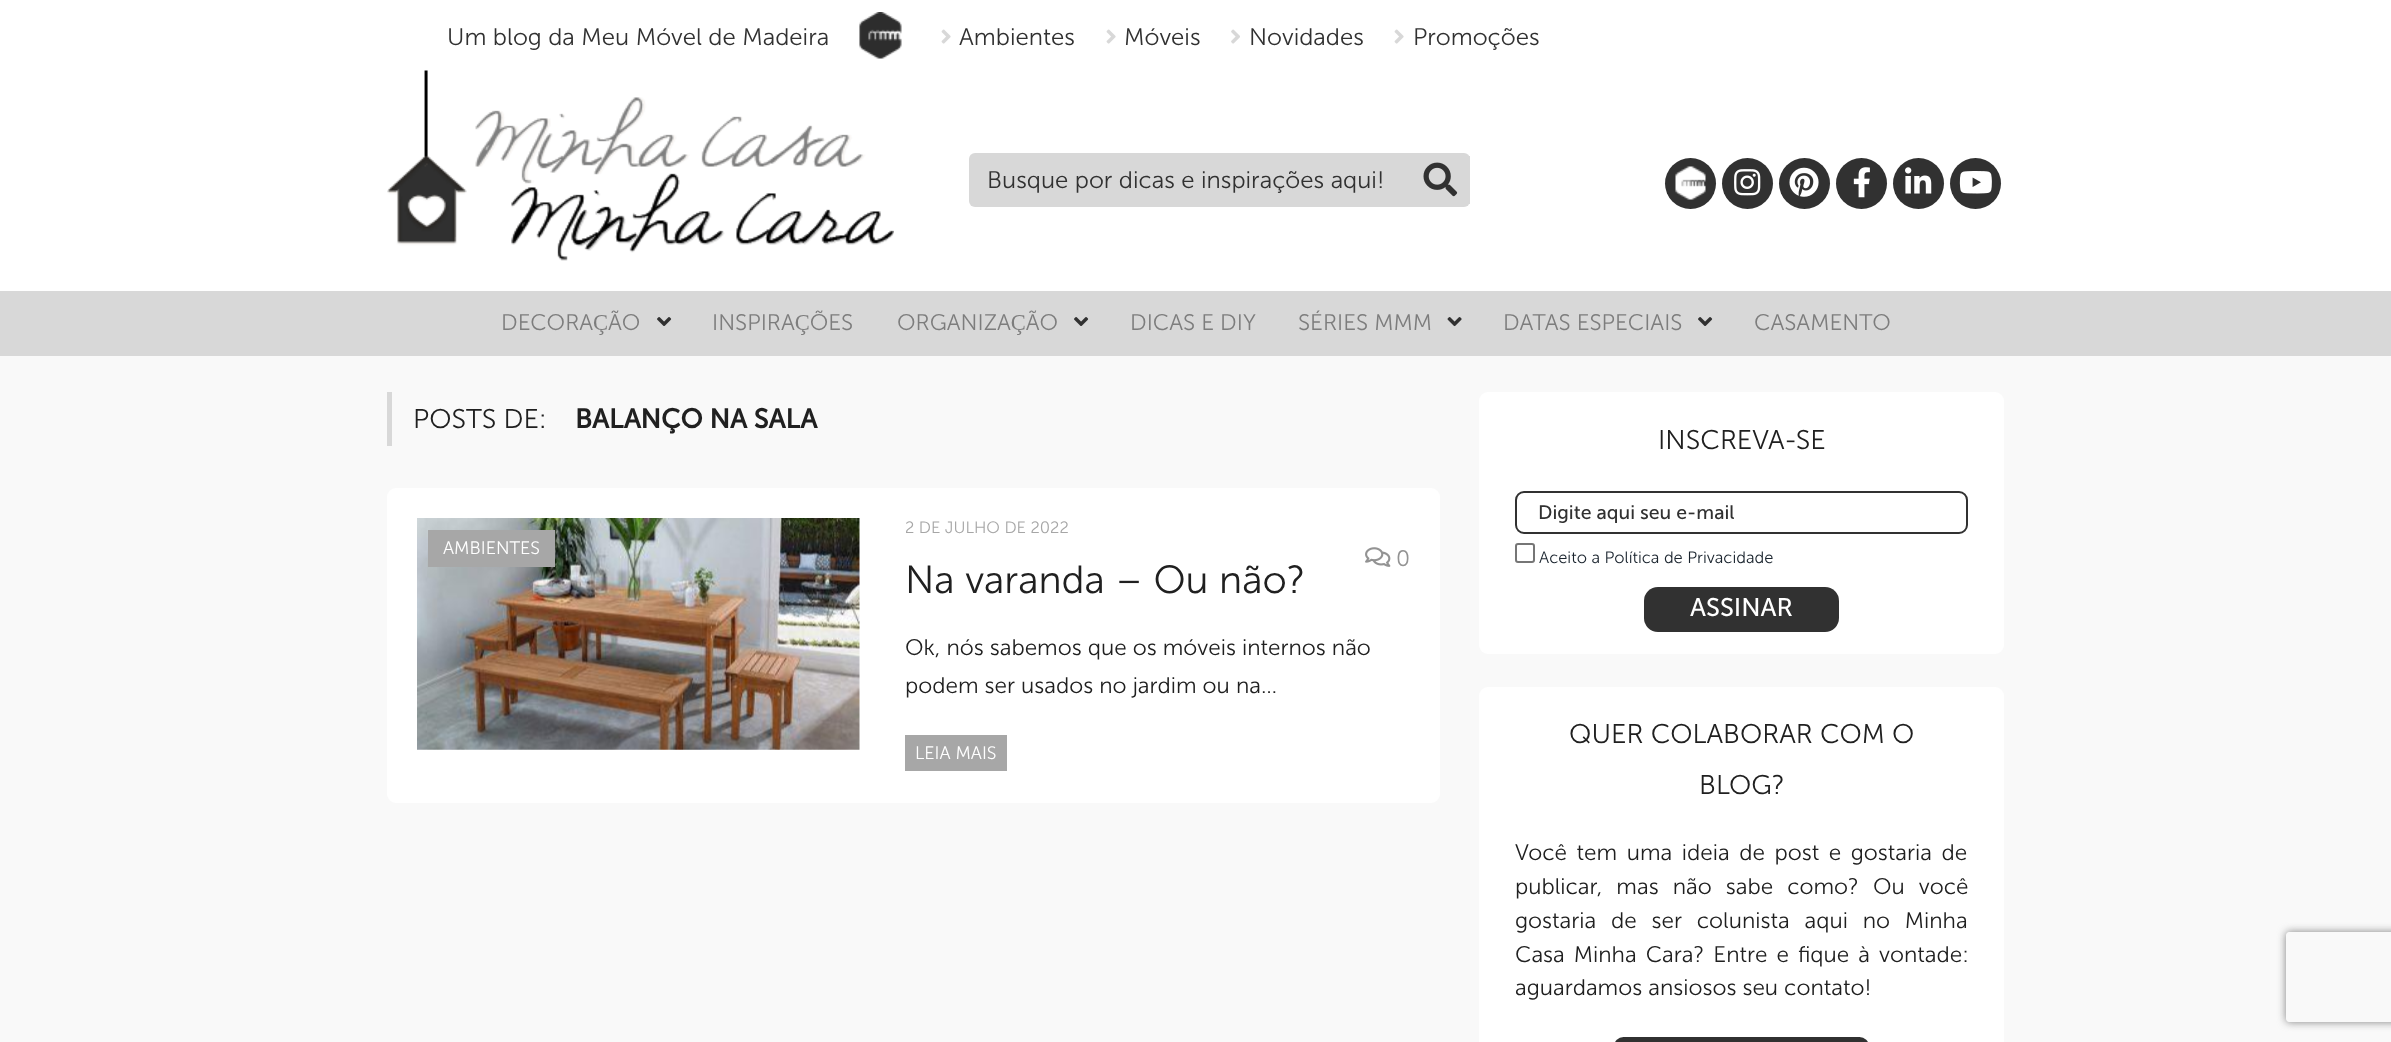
async function draw(canvas) {
  canvas.width = 2391;
  canvas.height = 1042;
  const ctx = canvas.getContext('2d');
  ctx.miterLimit = 4;
  ctx.fontKerning = 'normal';
  function label(s, x, y, font, color) {
    ctx.font = font;
    ctx.fillStyle = color;
    ctx.fillText(s, x, y);
  }
  function rect(x, y, w, h, color) {
    ctx.fillStyle = color;
    ctx.fillRect(x, y, w, h);
  }
  function roundedRect(x, y, w, h, r, color) {
    ctx.fillStyle = color;
    ctx.beginPath();
    ctx.roundRect(x, y, w, h, r);
    ctx.fill();
  }
  async function image(src, x, y, w, h) {
    const img = new Image();
    img.src = src;
    await img.decode();
    ctx.drawImage(img, x, y, w, h);
  }
  let path;

  rect(0, 0, 2391, 1042, '#f9f9f9');
  rect(0, 0, 2391, 291, '#fff');
  label('Um blog da Meu Móvel de Madeira', 447, 45, '300 24px "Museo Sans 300"', '#313131');
  await image('assets/img1.png', 859, 12, 43, 47);
  await image('assets/img2.png', 941, 29, 10, 15);
  label('Ambientes', 959, 45, '300 24px "Museo Sans 300"', '#313131');
  await image('assets/img2.png', 1106, 29, 10, 15);
  label('Móveis', 1124, 45, '300 24px "Museo Sans 300"', '#313131');
  await image('assets/img3.png', 1231, 29, 9, 15);
  label('Novidades', 1249, 45, '300 24px "Museo Sans 300"', '#313131');
  await image('assets/img2.png', 1394, 29, 10, 15);
  label('Promoções', 1413, 45, '300 24px "Museo Sans 300"', '#313131');
  await image('assets/img4.png', 387, 70, 507, 191);
  roundedRect(969, 153, 501, 54, 6, '#d8d8d8');
  rect(1469, 156, 1, 48, '#d8d8d8');
  label('Busque por dicas e inspirações aqui!', 987, 188, '300 24px "Museo Sans 300"', '#313131');
  await image('assets/img5.png', 1423, 162, 35, 35);
  ctx.beginPath();
  ctx.arc(1690.5, 183.5, 25.5, 0, 2 * Math.PI);
  ctx.fill();
  await image('assets/img6.png', 1675, 166, 31, 34);
  ctx.beginPath();
  ctx.arc(1747.5, 183.5, 25.5, 0, 2 * Math.PI);
  ctx.fill();
  await image('assets/img7.png', 1734, 169, 27, 27);
  ctx.beginPath();
  ctx.arc(1804.5, 183.5, 25.5, 0, 2 * Math.PI);
  ctx.fill();
  await image('assets/img8.png', 1789, 167, 30, 30);
  ctx.beginPath();
  ctx.arc(1861.5, 183.5, 25.5, 0, 2 * Math.PI);
  ctx.fill();
  await image('assets/img9.png', 1853, 167, 17, 31);
  ctx.beginPath();
  ctx.arc(1918.5, 183.5, 25.5, 0, 2 * Math.PI);
  ctx.fill();
  await image('assets/img10.png', 1905, 167, 27, 27);
  ctx.beginPath();
  ctx.arc(1975.5, 183.5, 25.5, 0, 2 * Math.PI);
  ctx.fill();
  await image('assets/img11.png', 1959, 171, 33, 23);
  rect(0, 291, 2391, 65, '#d8d8d8');
  label('DECORAÇÃO', 501, 330, '300 22.5px "Museo Sans 300"', '#7d7d7d');
  await image('assets/img12.png', 657, 317, 15, 9);
  label('INSPIRAÇÕES', 712, 330, '300 22.5px "Museo Sans 300"', '#7d7d7d');
  label('ORGANIZAÇÃO', 897, 330, '300 22.5px "Museo Sans 300"', '#7d7d7d');
  await image('assets/img12.png', 1074, 317, 15, 9);
  label('DICAS E DIY', 1130, 330, '300 22.5px "Museo Sans 300"', '#7d7d7d');
  label('SÉRIES MMM', 1298, 330, '300 22.5px "Museo Sans 300"', '#7d7d7d');
  await image('assets/img13.png', 1447, 317, 15, 10);
  label('DATAS ESPECIAIS', 1503, 330, '300 22.5px "Museo Sans 300"', '#7d7d7d');
  await image('assets/img12.png', 1698, 317, 15, 9);
  label('CASAMENTO', 1754, 330, '300 22.5px "Museo Sans 300"', '#7d7d7d');
  rect(387, 392, 5, 54, '#d8d8d8');
  label('POSTS DE:', 413, 428, '300 27px "Museo Sans 300"', '#202020');
  label('BALANÇO NA SALA', 575, 428, 'bold 27px "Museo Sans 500"', '#202020');
  roundedRect(387, 488, 1053, 315, 9, '#fff');
  await image('assets/img14.png', 417, 518, 443, 232);
  label('2 DE JULHO DE 2022', 905, 533, '300 16.5px "Museo Sans 300"', '#a6a6a6');
  await image('assets/img15.png', 1365, 547, 26, 20);
  label('0', 1396, 566, '300 22.5px "Museo Sans 300"', '#939393');
  label('Na varanda – Ou não?', 905, 593, '300 39px "Museo Sans 300"', '#202020');
  label('Ok, nós sabemos que os móveis internos não', 905, 655, '300 22.5px "Museo Sans 300"', '#202020');
  label('podem ser usados no jardim ou na…', 905, 693, '300 22.5px "Museo Sans 300"', '#202020');
  rect(905, 735, 102, 36, '#a7a7a7');
  label('LEIA MAIS', 915, 759, '300 18px "Museo Sans 300"', '#fff');
  rect(428, 530, 127, 37, '#a7a7a7');
  label('AMBIENTES', 443, 554, '300 18px "Museo Sans 300"', '#fff');
  roundedRect(1479, 392, 525, 262, 9, '#fff');
  label('INSCREVA-SE', 1658, 449, '300 27px "Museo Sans 300"', '#202020');
  ctx.beginPath();
  ctx.roundRect(1516, 492, 451, 41, 8);
  ctx.strokeStyle = '#313131';
  ctx.lineWidth = 2;
  ctx.stroke();
  label('Digite aqui seu e-mail', 1538, 519, '19.5px "Museo Sans 500"', '#313131');
  ctx.beginPath();
  ctx.roundRect(1516, 544, 18, 18, 2);
  ctx.strokeStyle = '#767676';
  ctx.stroke();
  label('Aceito a Política de Privacidade', 1539, 563, '300 16.5px "Museo Sans 300"', '#19232d');
  roundedRect(1644, 587, 195, 45, 14, '#313131');
  label('ASSINAR', 1690, 616, '25.5px "Museo Sans 500"', '#fff');
  roundedRect(1479, 687, 525, 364, 9, '#fff');
  label('QUER COLABORAR COM O', 1569, 743, '300 27px "Museo Sans 300"', '#202020');
  label('BLOG?', 1699, 794, '300 27px "Museo Sans 300"', '#202020');
  ctx.wordSpacing = '3.5px';
  label('Você tem uma ideia de post e gostaria de', 1515, 860, '300 22.5px "Museo Sans 300"', '#202020');
  ctx.wordSpacing = '8px';
  label('publicar, mas não sabe como? Ou você', 1515, 894, '300 22.5px "Museo Sans 300"', '#202020');
  ctx.wordSpacing = '8.75px';
  label('gostaria de ser colunista aqui no Minha', 1515, 928, '300 22.5px "Museo Sans 300"', '#202020');
  ctx.wordSpacing = '3px';
  label('Casa Minha Cara? Entre e fique à vontade:', 1515, 962, '300 22.5px "Museo Sans 300"', '#202020');
  ctx.wordSpacing = '0px';
  label('aguardamos ansiosos seu contato!', 1515, 995, '300 22.5px "Museo Sans 300"', '#202020');
  roundedRect(1614, 1037, 255, 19, 14, '#313131');
  ctx.save();
  path = new Path2D('M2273 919H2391V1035H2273ZM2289 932H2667C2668.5 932 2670 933.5 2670 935V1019C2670 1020.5 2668.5 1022 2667 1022H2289C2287.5 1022 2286 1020.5 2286 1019V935C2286 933.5 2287.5 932 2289 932Z');
  ctx.clip(path, 'evenodd');
  ctx.fillStyle = '#808080';
  ctx.filter = 'blur(4px)';
  ctx.beginPath();
  ctx.roundRect(2286, 932, 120, 90, 3);
  ctx.fill();
  ctx.filter = 'none';
  ctx.restore();
}

draw(document.querySelector('canvas'));
